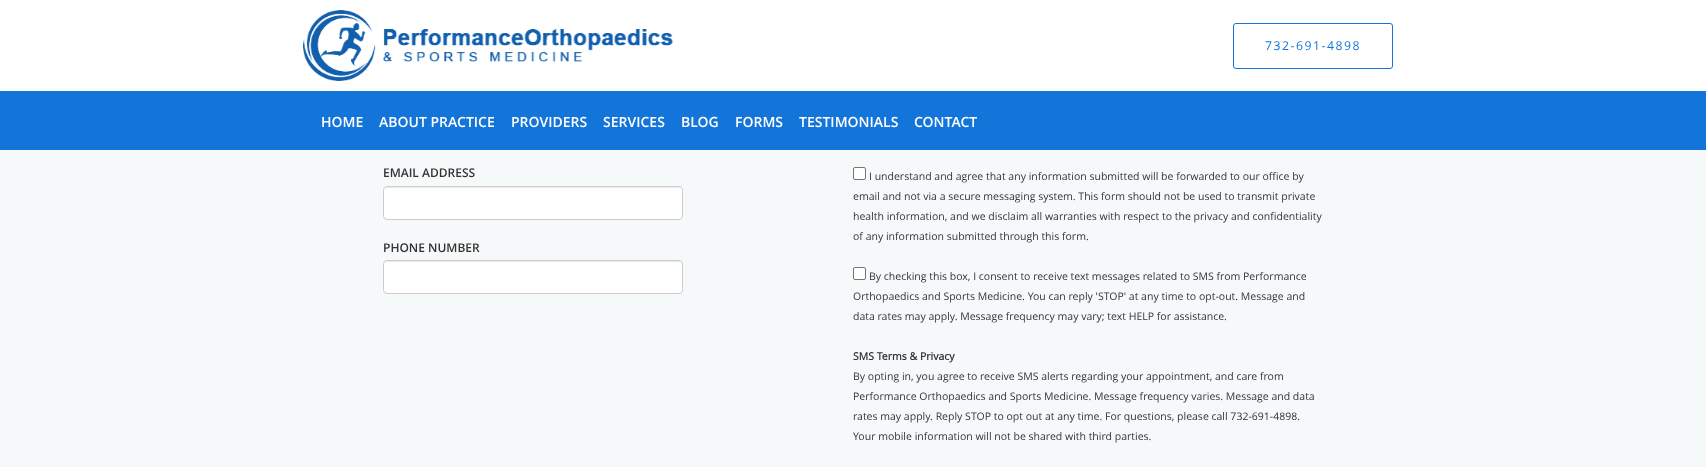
async function draw(canvas) {
  canvas.width = 1706;
  canvas.height = 467;
  const ctx = canvas.getContext('2d');
  ctx.miterLimit = 4;
  ctx.fontKerning = 'normal';
  function label(s, x, y, font, color) {
    ctx.font = font;
    ctx.fillStyle = color;
    ctx.fillText(s, x, y);
  }
  function rect(x, y, w, h, color) {
    ctx.fillStyle = color;
    ctx.fillRect(x, y, w, h);
  }
  function roundedRect(x, y, w, h, r, color) {
    ctx.fillStyle = color;
    ctx.beginPath();
    ctx.roundRect(x, y, w, h, r);
    ctx.fill();
  }
  async function image(src, x, y, w, h) {
    const img = new Image();
    img.src = src;
    await img.decode();
    ctx.drawImage(img, x, y, w, h);
  }
  let path;

  rect(0, 0, 1706, 467, '#f5f9f9');
  rect(0, 0, 1706, 91, '#fff');
  await image('assets/img1.png', 303, 10, 370, 71);
  ctx.beginPath();
  ctx.roundRect(1233.5, 23.5, 159, 45, 2.5);
  ctx.strokeStyle = '#1374d9';
  ctx.stroke();
  ctx.letterSpacing = '1.5px';
  label('732-691-4898', 1265, 50, '12.25px Open Sans', '#1374d9');
  rect(0, 91, 1706, 59, '#1374d9');
  ctx.letterSpacing = '0px';
  label('HOME', 321, 127, '600 14px Open Sans', '#fff');
  label('ABOUT PRACTICE', 379, 127, '600 14px Open Sans', '#fff');
  label('PROVIDERS', 511, 127, '600 14px Open Sans', '#fff');
  label('SERVICES', 603, 127, '600 14px Open Sans', '#fff');
  label('BLOG', 681, 127, '600 14px Open Sans', '#fff');
  label('FORMS', 735, 127, '600 14px Open Sans', '#fff');
  label('TESTIMONIALS', 799, 127, '600 14px Open Sans', '#fff');
  label('CONTACT', 914, 127, '600 14px Open Sans', '#fff');
  label('EMAIL ADDRESS', 383, 177, '600 12px Open Sans', '#333');
  roundedRect(383, 186, 300, 34, 4, '#fff');
  ctx.fillStyle = '#ececec';
  path = new Path2D('M387 188H679C681 188 682 189 682 191L681 188L680 187H387C385 187 384 189 384 191C384 189 385 188 387 188Z');
  ctx.fill(path);
  ctx.beginPath();
  ctx.roundRect(383.5, 186.5, 299, 33, 3.5);
  ctx.strokeStyle = '#ccc';
  ctx.stroke();
  label('PHONE NUMBER', 383, 252, '600 12px Open Sans', '#333');
  roundedRect(383, 260, 300, 34, 4, '#fff');
  ctx.fillStyle = '#ececec';
  path = new Path2D('M387 262H679C681 262 682 263 682 265L681 262L680 261H387C385 261 384 263 384 265C384 263 385 262 387 262Z');
  ctx.fill(path);
  ctx.beginPath();
  ctx.roundRect(383.5, 260.5, 299, 33, 3.5);
  ctx.stroke();
  ctx.fillStyle = '#fff';
  ctx.beginPath();
  ctx.roundRect(853.5, 167.5, 12, 12, 1.5);
  ctx.fill();
  ctx.strokeStyle = '#767676';
  ctx.stroke();
  label('I understand and agree that any information submitted will be forwarded to our office by', 869, 180, '10.5px Open Sans', '#333');
  label('email and not via a secure messaging system. This form should not be used to transmit private', 853, 200, '10.5px Open Sans', '#333');
  label('health information, and we disclaim all warranties with respect to the privacy and confidentiality', 853, 220, '10.5px Open Sans', '#333');
  label('of any information submitted through this form.', 853, 240, '10.5px Open Sans', '#333');
  ctx.fillStyle = '#fff';
  ctx.beginPath();
  ctx.roundRect(853.5, 267.5, 12, 12, 1.5);
  ctx.fill();
  ctx.stroke();
  label('By checking this box, I consent to receive text messages related to SMS from Performance', 869, 280, '10.5px Open Sans', '#333');
  label('Orthopaedics and Sports Medicine. You can reply \'STOP\' at any time to opt-out. Message and', 853, 300, '10.5px Open Sans', '#333');
  label('data rates may apply. Message frequency may vary; text HELP for assistance.', 853, 320, '10.5px Open Sans', '#333');
  label('SMS Terms & Privacy', 853, 360, 'bold 10.5px Open Sans', '#333');
  label('By opting in, you agree to receive SMS alerts regarding your appointment, and care from', 853, 380, '10.5px Open Sans', '#333');
  label('Performance Orthopaedics and Sports Medicine. Message frequency varies. Message and data', 853, 400, '10.5px Open Sans', '#333');
  label('rates may apply. Reply STOP to opt out at any time. For questions, please call 732-691-4898.', 853, 420, '10.5px Open Sans', '#333');
  label('Your mobile information will not be shared with third parties.', 853, 440, '10.5px Open Sans', '#333');
}

draw(document.querySelector('canvas'));
